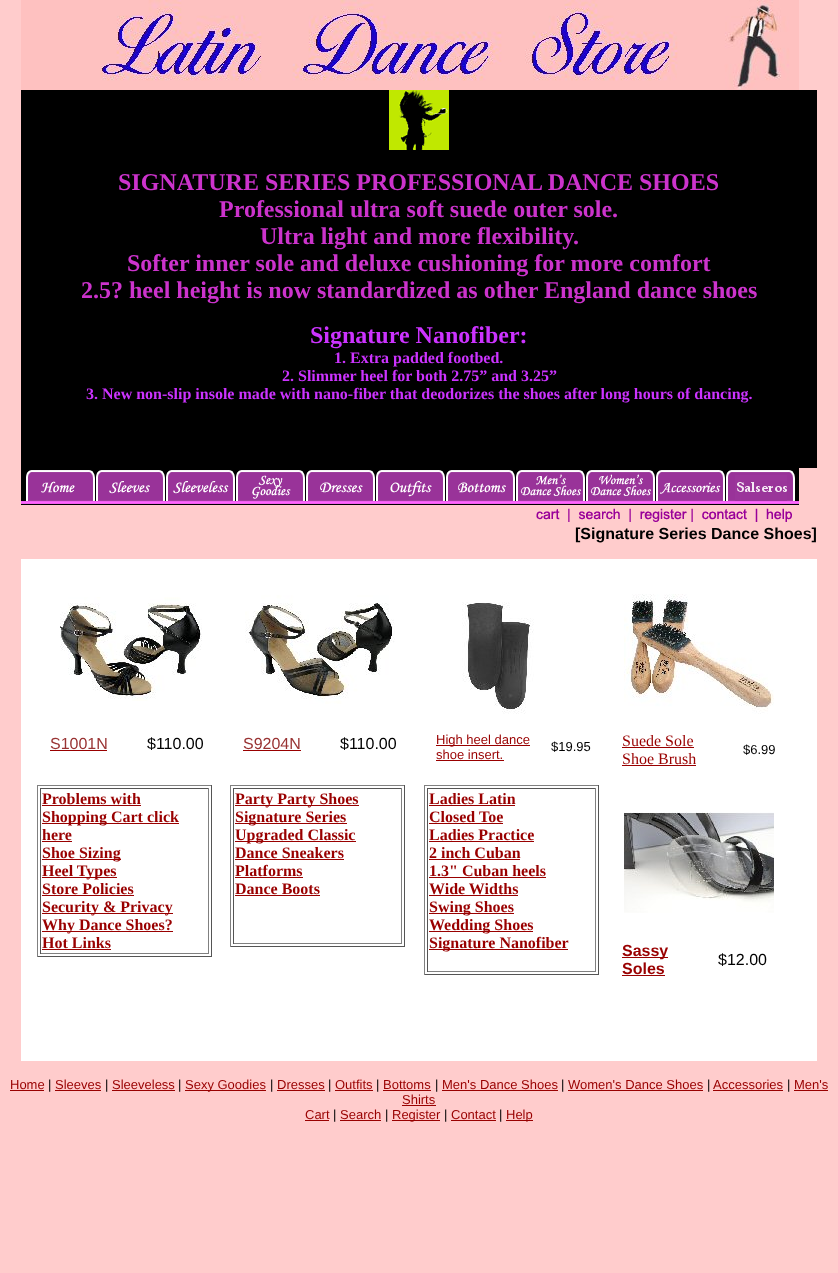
async function draw(canvas) {
  canvas.width = 838;
  canvas.height = 1273;
  const ctx = canvas.getContext('2d');
  ctx.miterLimit = 4;
  ctx.fontKerning = 'normal';
  function label(s, x, y, font, color) {
    ctx.font = font;
    ctx.fillStyle = color;
    ctx.fillText(s, x, y);
  }
  function rect(x, y, w, h, color) {
    ctx.fillStyle = color;
    ctx.fillRect(x, y, w, h);
  }
  async function image(src, x, y, w, h) {
    const img = new Image();
    img.src = src;
    await img.decode();
    ctx.drawImage(img, x, y, w, h);
  }

  rect(0, 0, 838, 1273, '#fcc');
  await image('assets/img1.png', 21, 0, 778, 90);
  rect(21, 90, 796, 378, '#000');
  await image('assets/img2.png', 389, 90, 60, 60);
  label('SIGNATURE SERIES PROFESSIONAL DANCE SHOES', 118, 190, 'bold 24px Liberation Serif', '#c3c');
  label('Professional ultra soft suede outer sole.', 219, 217, 'bold 24px Liberation Serif', '#c3c');
  label('Ultra light and more flexibility.', 260, 244, 'bold 24px Liberation Serif', '#c3c');
  label('Softer inner sole and deluxe cushioning for more comfort', 127, 271, 'bold 24px Liberation Serif', '#c3c');
  label('2.5? heel height is now standardized as other England dance shoes', 81, 298, 'bold 24px Liberation Serif', '#c3c');
  label('Signature Nanofiber:', 310, 343, 'bold 24px Liberation Serif', '#c3f');
  label('1. Extra padded footbed.', 334, 363, 'bold 16px Liberation Serif', '#c3f');
  label('2. Slimmer heel for both 2.75” and 3.25”', 282, 381, 'bold 16px Liberation Serif', '#c3f');
  label('3. New non-slip insole made with nano-fiber that deodorizes the shoes after long hours of dancing.', 86, 399, 'bold 16px Liberation Serif', '#c3f');
  await image('assets/img3.png', 21, 468, 778, 36);
  await image('assets/img4.png', 21, 504, 778, 18);
  label('[Signature Series Dance Shoes]', 575, 539, 'bold 16px Liberation Sans', '#000');
  rect(21, 559, 796, 502, '#fff');
  await image('assets/img5.png', 60, 597, 142, 104);
  label('S1001N', 50, 749, '16px Liberation Sans', '#933');
  rect(50, 750, 57, 1, '#900');
  label('$110.00', 147, 749, '16px Liberation Sans', '#000');
  await image('assets/img6.png', 245, 595, 150, 109);
  label('S9204N', 243, 749, '16px Liberation Sans', '#933');
  rect(243, 750, 58, 1, '#900');
  label('$110.00', 340, 749, '16px Liberation Sans', '#000');
  await image('assets/img7.png', 462, 602, 72, 112);
  rect(436, 745, 94, 1, '#900');
  label('High heel dance', 436, 744, '13px Liberation Sans', '#900');
  label('shoe insert.', 436, 759, '13px Liberation Sans', '#900');
  rect(436, 760, 68, 1, '#900');
  label('$19.95', 551, 751, '13px Liberation Sans', '#000');
  await image('assets/img8.png', 624, 594, 150, 120);
  label('Suede Sole', 622, 746, '16px Liberation Serif', '#900');
  rect(622, 747, 72, 1, '#900');
  label('Shoe Brush', 622, 764, '16px Liberation Serif', '#900');
  rect(622, 765, 74, 1, '#900');
  label('$6.99', 743, 754, '13px Liberation Sans', '#000');
  rect(37, 785, 175, 1, '#808080');
  rect(211, 785, 1, 172, '#555');
  rect(37, 956, 175, 1, '#555');
  rect(37, 785, 1, 172, '#808080');
  rect(40, 788, 169, 1, '#555');
  rect(208, 788, 1, 166, '#808080');
  rect(40, 953, 169, 1, '#808080');
  rect(40, 788, 1, 166, '#555');
  label('Problems with', 42, 804, 'bold 16px Liberation Serif', '#900');
  rect(42, 805, 99, 1, '#900');
  rect(42, 823, 137, 1, '#900');
  label('Shopping Cart click', 42, 822, 'bold 16px Liberation Serif', '#900');
  label('here', 42, 840, 'bold 16px Liberation Serif', '#900');
  rect(42, 841, 30, 1, '#900');
  rect(42, 859, 79, 1, '#900');
  label('Shoe Sizing', 42, 858, 'bold 16px Liberation Serif', '#900');
  rect(42, 877, 75, 1, '#900');
  label('Heel Types', 42, 876, 'bold 16px Liberation Serif', '#900');
  label('Store Policies', 42, 894, 'bold 16px Liberation Serif', '#900');
  rect(42, 895, 92, 1, '#900');
  rect(42, 913, 131, 1, '#900');
  label('Security & Privacy', 42, 912, 'bold 16px Liberation Serif', '#900');
  rect(42, 931, 131, 1, '#900');
  label('Why Dance Shoes?', 42, 930, 'bold 16px Liberation Serif', '#900');
  label('Hot Links', 42, 948, 'bold 16px Liberation Serif', '#900');
  rect(42, 949, 69, 1, '#900');
  rect(230, 785, 175, 1, '#808080');
  rect(404, 785, 1, 162, '#555');
  rect(230, 946, 175, 1, '#555');
  rect(230, 785, 1, 162, '#808080');
  rect(233, 788, 169, 1, '#555');
  rect(401, 788, 1, 156, '#808080');
  rect(233, 943, 169, 1, '#808080');
  rect(233, 788, 1, 156, '#555');
  rect(235, 805, 124, 1, '#900');
  label('Party Party Shoes', 235, 804, 'bold 16px Liberation Serif', '#900');
  rect(235, 823, 112, 1, '#900');
  label('Signature Series', 235, 822, 'bold 16px Liberation Serif', '#900');
  rect(235, 841, 121, 1, '#900');
  label('Upgraded Classic', 235, 840, 'bold 16px Liberation Serif', '#900');
  label('Dance Sneakers', 235, 858, 'bold 16px Liberation Serif', '#900');
  rect(235, 859, 109, 1, '#900');
  label('Platforms', 235, 876, 'bold 16px Liberation Serif', '#900');
  rect(235, 877, 68, 1, '#900');
  label('Dance Boots', 235, 894, 'bold 16px Liberation Serif', '#900');
  rect(235, 895, 85, 1, '#900');
  rect(424, 785, 175, 1, '#808080');
  rect(598, 785, 1, 190, '#555');
  rect(424, 974, 175, 1, '#555');
  rect(424, 785, 1, 190, '#808080');
  rect(427, 788, 169, 1, '#555');
  rect(595, 788, 1, 184, '#808080');
  rect(427, 971, 169, 1, '#808080');
  rect(427, 788, 1, 184, '#555');
  label('Ladies Latin', 429, 804, 'bold 16px Liberation Serif', '#900');
  rect(429, 805, 86, 1, '#900');
  label('Closed Toe', 429, 822, 'bold 16px Liberation Serif', '#900');
  rect(429, 823, 74, 1, '#900');
  label('Ladies Practice', 429, 840, 'bold 16px Liberation Serif', '#900');
  rect(429, 841, 105, 1, '#900');
  label('2 inch Cuban', 429, 858, 'bold 16px Liberation Serif', '#900');
  rect(429, 859, 91, 1, '#900');
  label('1.3" Cuban heels', 429, 876, 'bold 16px Liberation Serif', '#900');
  rect(429, 877, 117, 1, '#900');
  label('Wide Widths', 429, 894, 'bold 16px Liberation Serif', '#900');
  rect(429, 895, 89, 1, '#900');
  rect(429, 913, 85, 1, '#900');
  label('Swing Shoes', 429, 912, 'bold 16px Liberation Serif', '#900');
  rect(429, 931, 104, 1, '#900');
  label('Wedding Shoes', 429, 930, 'bold 16px Liberation Serif', '#900');
  rect(429, 949, 139, 1, '#900');
  label('Signature Nanofiber', 429, 948, 'bold 16px Liberation Serif', '#900');
  await image('assets/img9.png', 624, 812, 150, 101);
  rect(622, 957, 46, 1, '#900');
  label('Sassy', 622, 956, 'bold 16px Liberation Sans', '#900');
  label('Soles', 622, 974, 'bold 16px Liberation Sans', '#900');
  rect(622, 975, 43, 1, '#900');
  label('$12.00', 718, 965, '16px Liberation Sans', '#000');
  label('Home', 10, 1089, '13px Liberation Sans', '#900');
  rect(10, 1090, 34, 1, '#900');
  label('|', 48, 1089, '13px Liberation Sans', '#000');
  label('Sleeves', 55, 1089, '13px Liberation Sans', '#900');
  rect(55, 1090, 46, 1, '#900');
  label('|', 105, 1089, '13px Liberation Sans', '#000');
  label('Sleeveless', 112, 1089, '13px Liberation Sans', '#900');
  rect(112, 1090, 63, 1, '#900');
  label('|', 178, 1089, '13px Liberation Sans', '#000');
  rect(185, 1090, 81, 1, '#900');
  label('Sexy Goodies', 185, 1089, '13px Liberation Sans', '#900');
  label('|', 270, 1089, '13px Liberation Sans', '#000');
  label('Dresses', 277, 1089, '13px Liberation Sans', '#900');
  rect(277, 1090, 48, 1, '#900');
  label('|', 328, 1089, '13px Liberation Sans', '#000');
  label('Outfits', 335, 1089, '13px Liberation Sans', '#900');
  rect(335, 1090, 38, 1, '#900');
  label('|', 376, 1089, '13px Liberation Sans', '#000');
  label('Bottoms', 383, 1089, '13px Liberation Sans', '#900');
  rect(383, 1090, 48, 1, '#900');
  label('|', 435, 1089, '13px Liberation Sans', '#000');
  label('Men\'s Dance Shoes', 442, 1089, '13px Liberation Sans', '#900');
  rect(442, 1090, 116, 1, '#900');
  label('|', 561, 1089, '13px Liberation Sans', '#000');
  label('Women\'s Dance Shoes', 568, 1089, '13px Liberation Sans', '#900');
  rect(568, 1090, 135, 1, '#900');
  label('|', 707, 1089, '13px Liberation Sans', '#000');
  label('Accessories', 713, 1089, '13px Liberation Sans', '#900');
  rect(713, 1090, 70, 1, '#900');
  label('|', 787, 1089, '13px Liberation Sans', '#000');
  label('Men\'s', 794, 1089, '13px Liberation Sans', '#900');
  rect(794, 1090, 34, 1, '#900');
  label('Shirts', 402, 1104, '13px Liberation Sans', '#900');
  rect(402, 1105, 34, 1, '#900');
  label('Cart', 305, 1119, '13px Liberation Sans', '#900');
  rect(305, 1120, 24, 1, '#900');
  label('|', 333, 1119, '13px Liberation Sans', '#000');
  label('Search', 340, 1119, '13px Liberation Sans', '#900');
  rect(340, 1120, 41, 1, '#900');
  label('|', 385, 1119, '13px Liberation Sans', '#000');
  rect(392, 1120, 48, 1, '#900');
  label('Register', 392, 1119, '13px Liberation Sans', '#900');
  label('|', 444, 1119, '13px Liberation Sans', '#000');
  label('Contact', 451, 1119, '13px Liberation Sans', '#900');
  rect(451, 1120, 45, 1, '#900');
  label('|', 499, 1119, '13px Liberation Sans', '#000');
  rect(506, 1120, 27, 1, '#900');
  label('Help', 506, 1119, '13px Liberation Sans', '#900');
}

draw(document.querySelector('canvas'));
